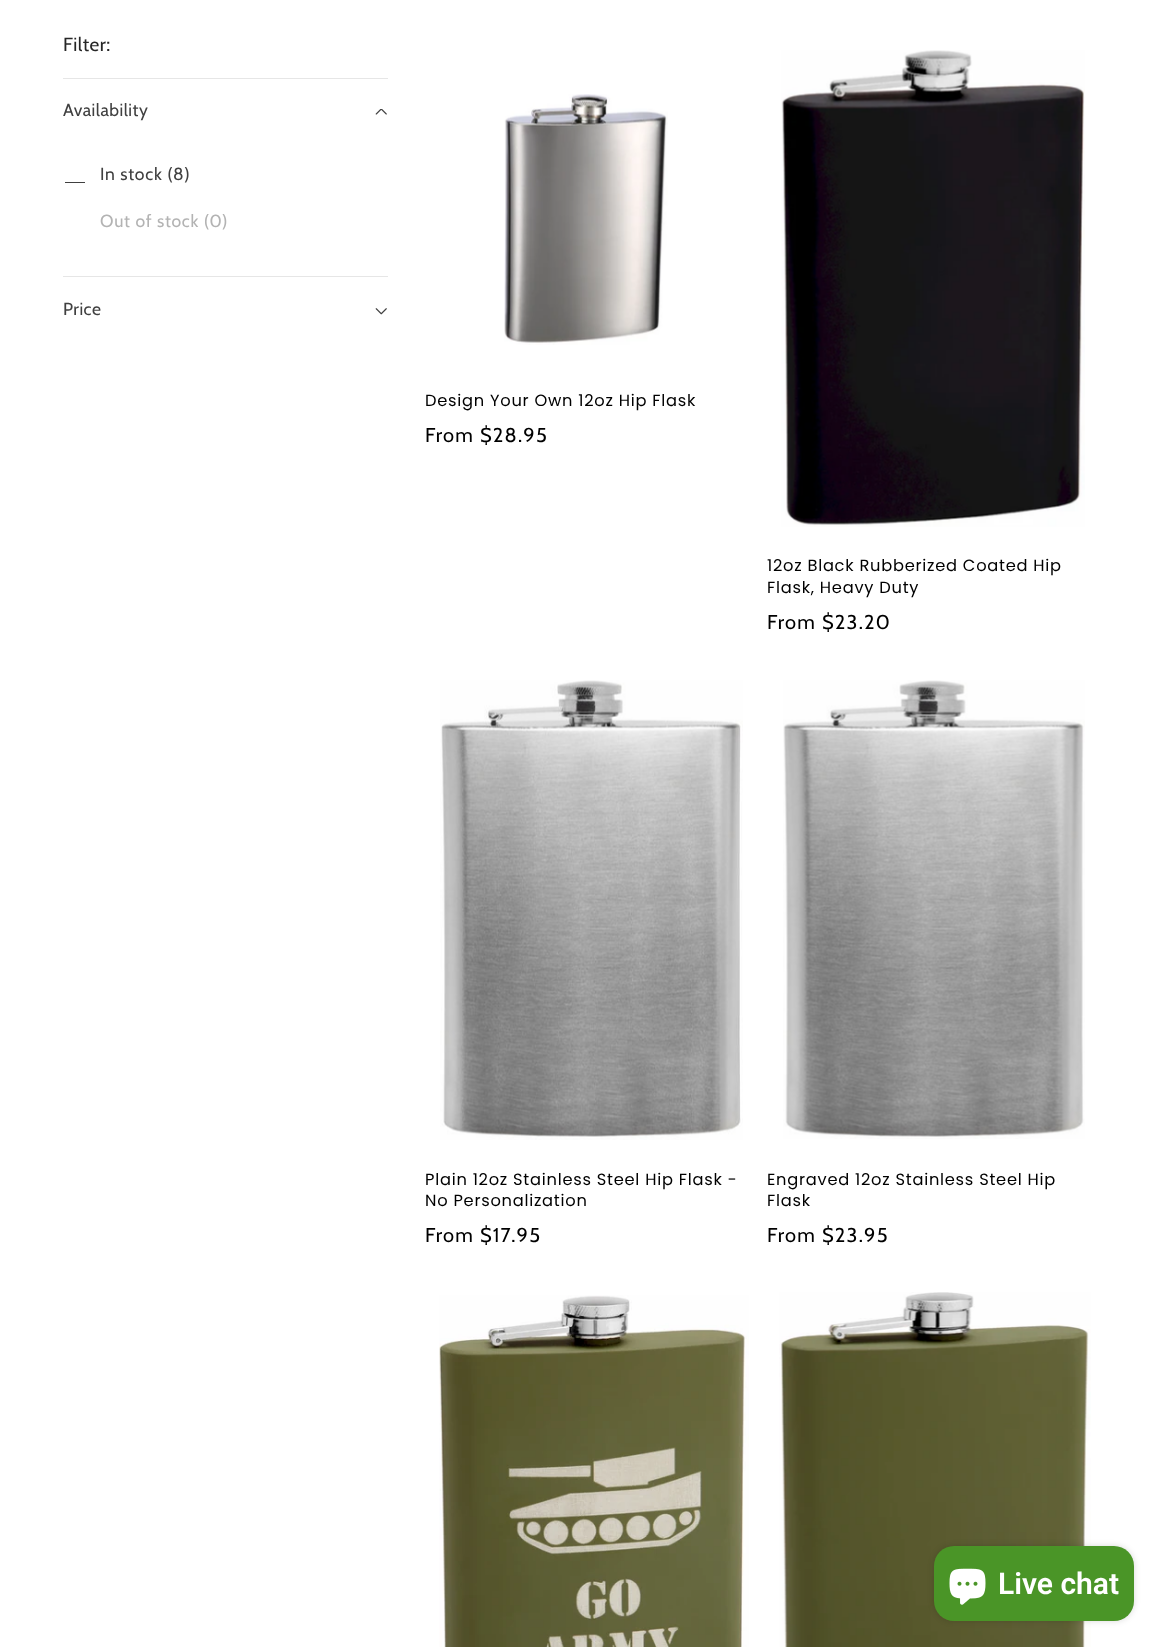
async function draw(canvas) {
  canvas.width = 1161;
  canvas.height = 1647;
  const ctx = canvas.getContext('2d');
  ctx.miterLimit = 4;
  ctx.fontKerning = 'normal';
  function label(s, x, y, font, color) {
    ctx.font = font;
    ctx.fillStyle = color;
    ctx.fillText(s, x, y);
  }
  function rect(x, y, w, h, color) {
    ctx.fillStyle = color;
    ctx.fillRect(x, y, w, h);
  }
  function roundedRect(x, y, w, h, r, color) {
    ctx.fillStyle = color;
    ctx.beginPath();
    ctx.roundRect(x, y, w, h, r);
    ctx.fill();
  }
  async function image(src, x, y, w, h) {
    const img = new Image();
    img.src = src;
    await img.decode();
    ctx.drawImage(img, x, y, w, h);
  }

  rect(0, 0, 1161, 1647, '#fff');
  ctx.letterSpacing = '0.5px';
  label('Filter:', 63, 51, '19px Cabin', '#262626');
  rect(63, 78, 325, 1, '#e6e6e6');
  label('Availability', 63, 116, '17.5px Cabin', '#404040');
  await image('assets/img1.png', 375, 109, 12, 6);
  ctx.save();
  ctx.beginPath();
  ctx.rect(65, 163, 20, 20);
  ctx.clip();
  ctx.strokeStyle = '#404040';
  ctx.strokeRect(64.5, 162.5, 21, 20);
  ctx.restore();
  ctx.letterSpacing = '0.75px';
  label('In stock (8)', 100, 180, '17.5px Cabin', '#404040');
  label('Out of stock (0)', 100, 227, '17.5px Cabin', '#b3b3b3');
  rect(63, 276, 325, 1, '#e6e6e6');
  ctx.letterSpacing = '0.5px';
  label('Price', 63, 315, '17.5px Cabin', '#404040');
  await image('assets/img2.png', 375, 308, 12, 7);
  await image('assets/img3.png', 504, 94, 164, 251);
  ctx.letterSpacing = '0.75px';
  label('Design Your Own 12oz Hip Flask', 425, 406, '16.25px Poppins', '#000');
  ctx.letterSpacing = '1.25px';
  label('From $28.95', 425, 442, '20px Cabin', '#000');
  await image('assets/img4.png', 781, 50, 304, 477);
  ctx.letterSpacing = '0.75px';
  label('12oz Black Rubberized Coated Hip', 767, 571, '16.25px Poppins', '#000');
  label('Flask, Heavy Duty', 767, 593, '16.25px Poppins', '#000');
  ctx.letterSpacing = '1.25px';
  label('From $23.20', 767, 629, '20px Cabin', '#000');
  await image('assets/img5.png', 440, 680, 303, 460);
  ctx.letterSpacing = '0.75px';
  label('Plain 12oz Stainless Steel Hip Flask -', 425, 1185, '16.25px Poppins', '#000');
  label('No Personalization', 425, 1206, '16.25px Poppins', '#000');
  ctx.letterSpacing = '1.25px';
  label('From $17.95', 425, 1242, '20px Cabin', '#000');
  await image('assets/img6.png', 783, 680, 302, 459);
  ctx.letterSpacing = '0.75px';
  label('Engraved 12oz Stainless Steel Hip', 767, 1185, '16.25px Poppins', '#000');
  label('Flask', 767, 1206, '16.25px Poppins', '#000');
  ctx.letterSpacing = '1.25px';
  label('From $23.95', 767, 1242, '20px Cabin', '#000');
  await image('assets/img7.png', 439, 1295, 310, 352);
  await image('assets/img8.png', 779, 1292, 312, 355);
  ctx.fillStyle = '#00000026';
  ctx.filter = 'blur(3px)';
  ctx.beginPath();
  ctx.roundRect(934, 1546, 200, 75, 20);
  ctx.fill();
  ctx.filter = 'none';
  roundedRect(934, 1546, 200, 75, 20, '#4a9527');
  await image('assets/img9.png', 949, 1568, 37, 37);
  ctx.letterSpacing = '0px';
  label('Live chat', 998, 1594, '600 30px Roboto', '#fff');
}

draw(document.querySelector('canvas'));
